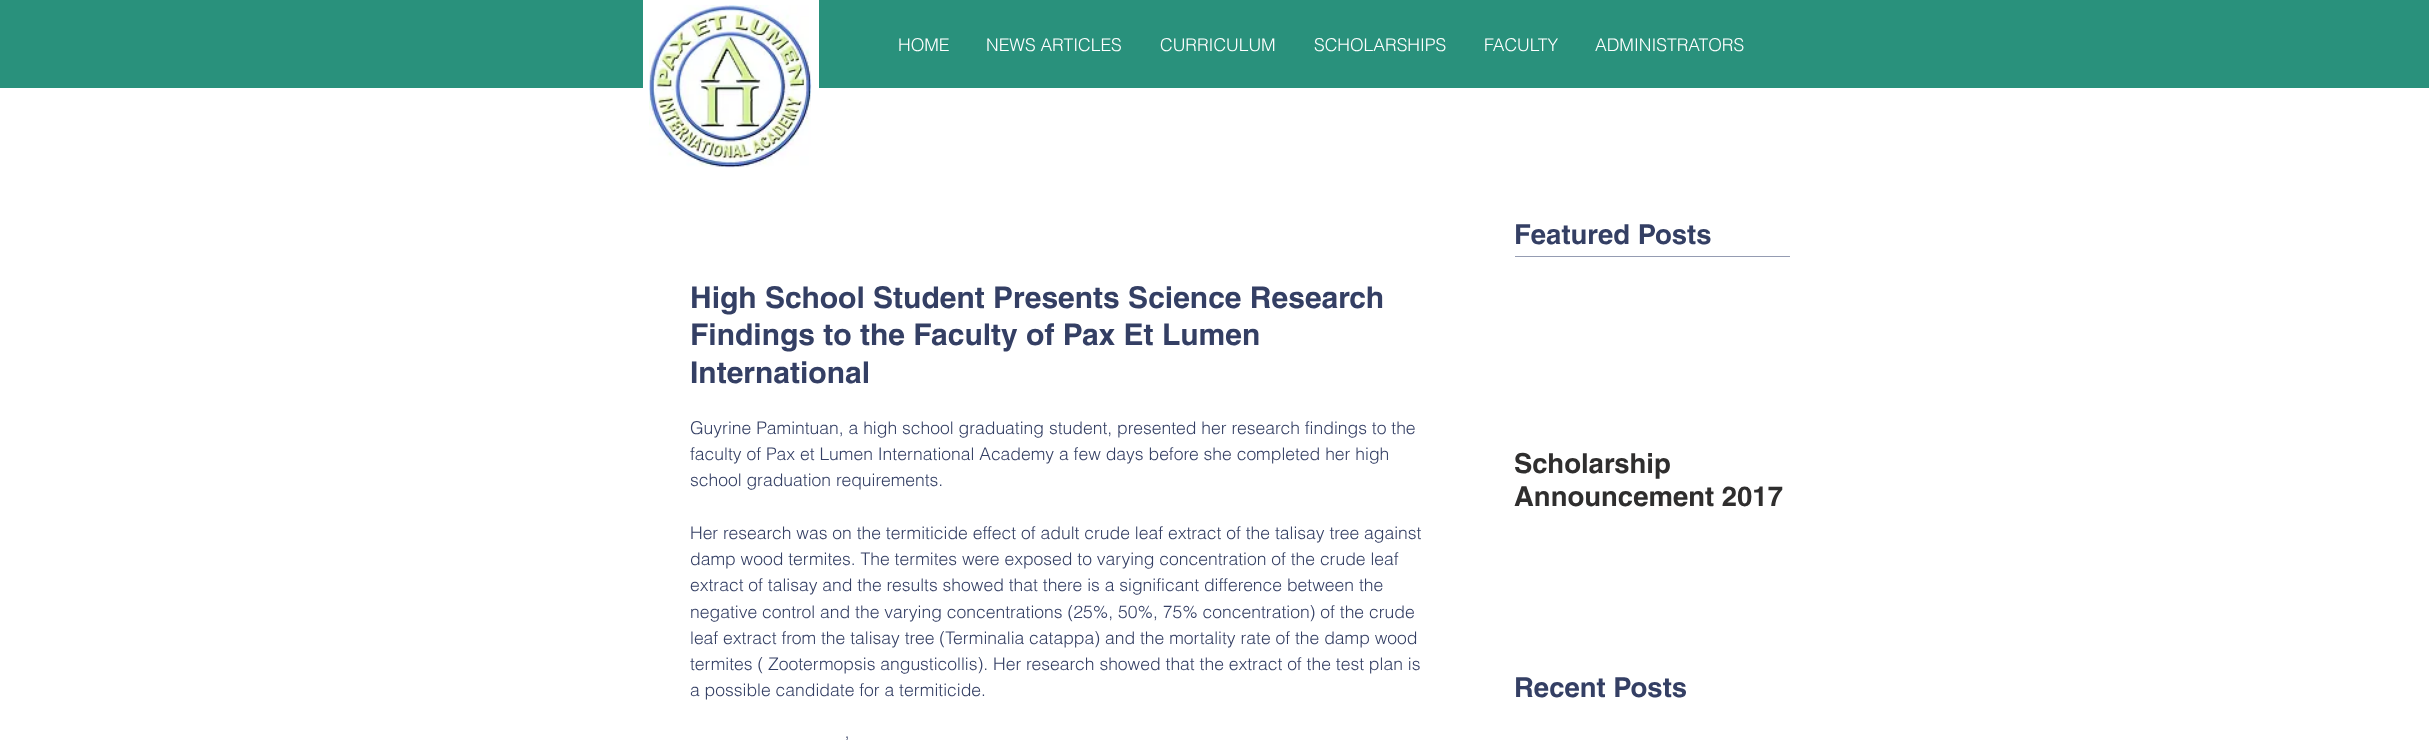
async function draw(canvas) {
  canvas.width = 2429;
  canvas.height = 740;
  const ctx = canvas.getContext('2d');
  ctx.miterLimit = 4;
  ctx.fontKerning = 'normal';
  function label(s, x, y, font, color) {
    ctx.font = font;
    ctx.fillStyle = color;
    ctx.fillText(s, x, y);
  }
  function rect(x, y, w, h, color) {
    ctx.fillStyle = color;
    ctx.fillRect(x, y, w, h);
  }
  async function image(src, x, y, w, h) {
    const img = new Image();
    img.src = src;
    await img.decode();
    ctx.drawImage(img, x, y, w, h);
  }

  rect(0, 0, 2429, 740, '#fff');
  rect(0, 0, 2429, 88, '#29917c');
  rect(643, 0, 176, 88, '#fff');
  await image('assets/img1.png', 649, 5, 163, 163);
  label('HOME', 898, 51, '300 17.5px helvetica', '#fff');
  label('NEWS ARTICLES', 986, 51, '300 17.5px helvetica', '#fff');
  label('CURRICULUM', 1160, 51, '300 17.5px helvetica', '#fff');
  label('SCHOLARSHIPS', 1314, 51, '300 17.5px helvetica', '#fff');
  label('FACULTY', 1484, 51, '300 17.5px helvetica', '#fff');
  label('ADMINISTRATORS', 1595, 51, '300 17.5px helvetica', '#fff');
  label('Featured Posts', 1514, 244, 'bold 27.5px helvetica', '#343f64');
  rect(1515, 256, 275, 1, '#959cb2');
  label('High School Student Presents Science Research', 690, 308, 'bold 30px helvetica', '#343f64');
  label('Findings to the Faculty of Pax Et Lumen', 690, 345, 'bold 30px helvetica', '#343f64');
  label('International', 690, 383, 'bold 30px helvetica', '#343f64');
  label('Guyrine Pamintuan, a high school graduating student, presented her research findings to the', 690, 434, '300 17.5px helvetica', '#343f64');
  label('faculty of Pax et Lumen International Academy a few days before she completed her high', 690, 460, '300 17.5px helvetica', '#343f64');
  label('school graduation requirements.', 690, 486, '300 17.5px helvetica', '#343f64');
  label('Her research was on the termiticide effect of adult crude leaf extract of the talisay tree against', 690, 539, '300 17.5px helvetica', '#343f64');
  label('damp wood termites. The termites were exposed to varying concentration of the crude leaf', 690, 565, '300 17.5px helvetica', '#343f64');
  label('extract of talisay and the results showed that there is a significant difference between the', 690, 591, '300 17.5px helvetica', '#343f64');
  label('negative control and the varying concentrations (25%, 50%, 75% concentration) of the crude', 690, 618, '300 17.5px helvetica', '#343f64');
  label('leaf extract from the talisay tree (Terminalia catappa) and the mortality rate of the damp wood', 690, 644, '300 17.5px helvetica', '#343f64');
  label('termites ( Zootermopsis angusticollis). Her research showed that the extract of the test plan is', 690, 670, '300 17.5px helvetica', '#343f64');
  label('a possible candidate for a termiticide.', 690, 696, '300 17.5px helvetica', '#343f64');
  label('’', 845, 749, '300 17.5px helvetica', '#343f64');
  label('Scholarship', 1514, 473, 'bold 27.5px helvetica', '#2f2e2e');
  label('Announcement 2017', 1514, 506, 'bold 27.5px helvetica', '#2f2e2e');
  label('Recent Posts', 1514, 697, 'bold 27.5px helvetica', '#343f64');
}

draw(document.querySelector('canvas'));
